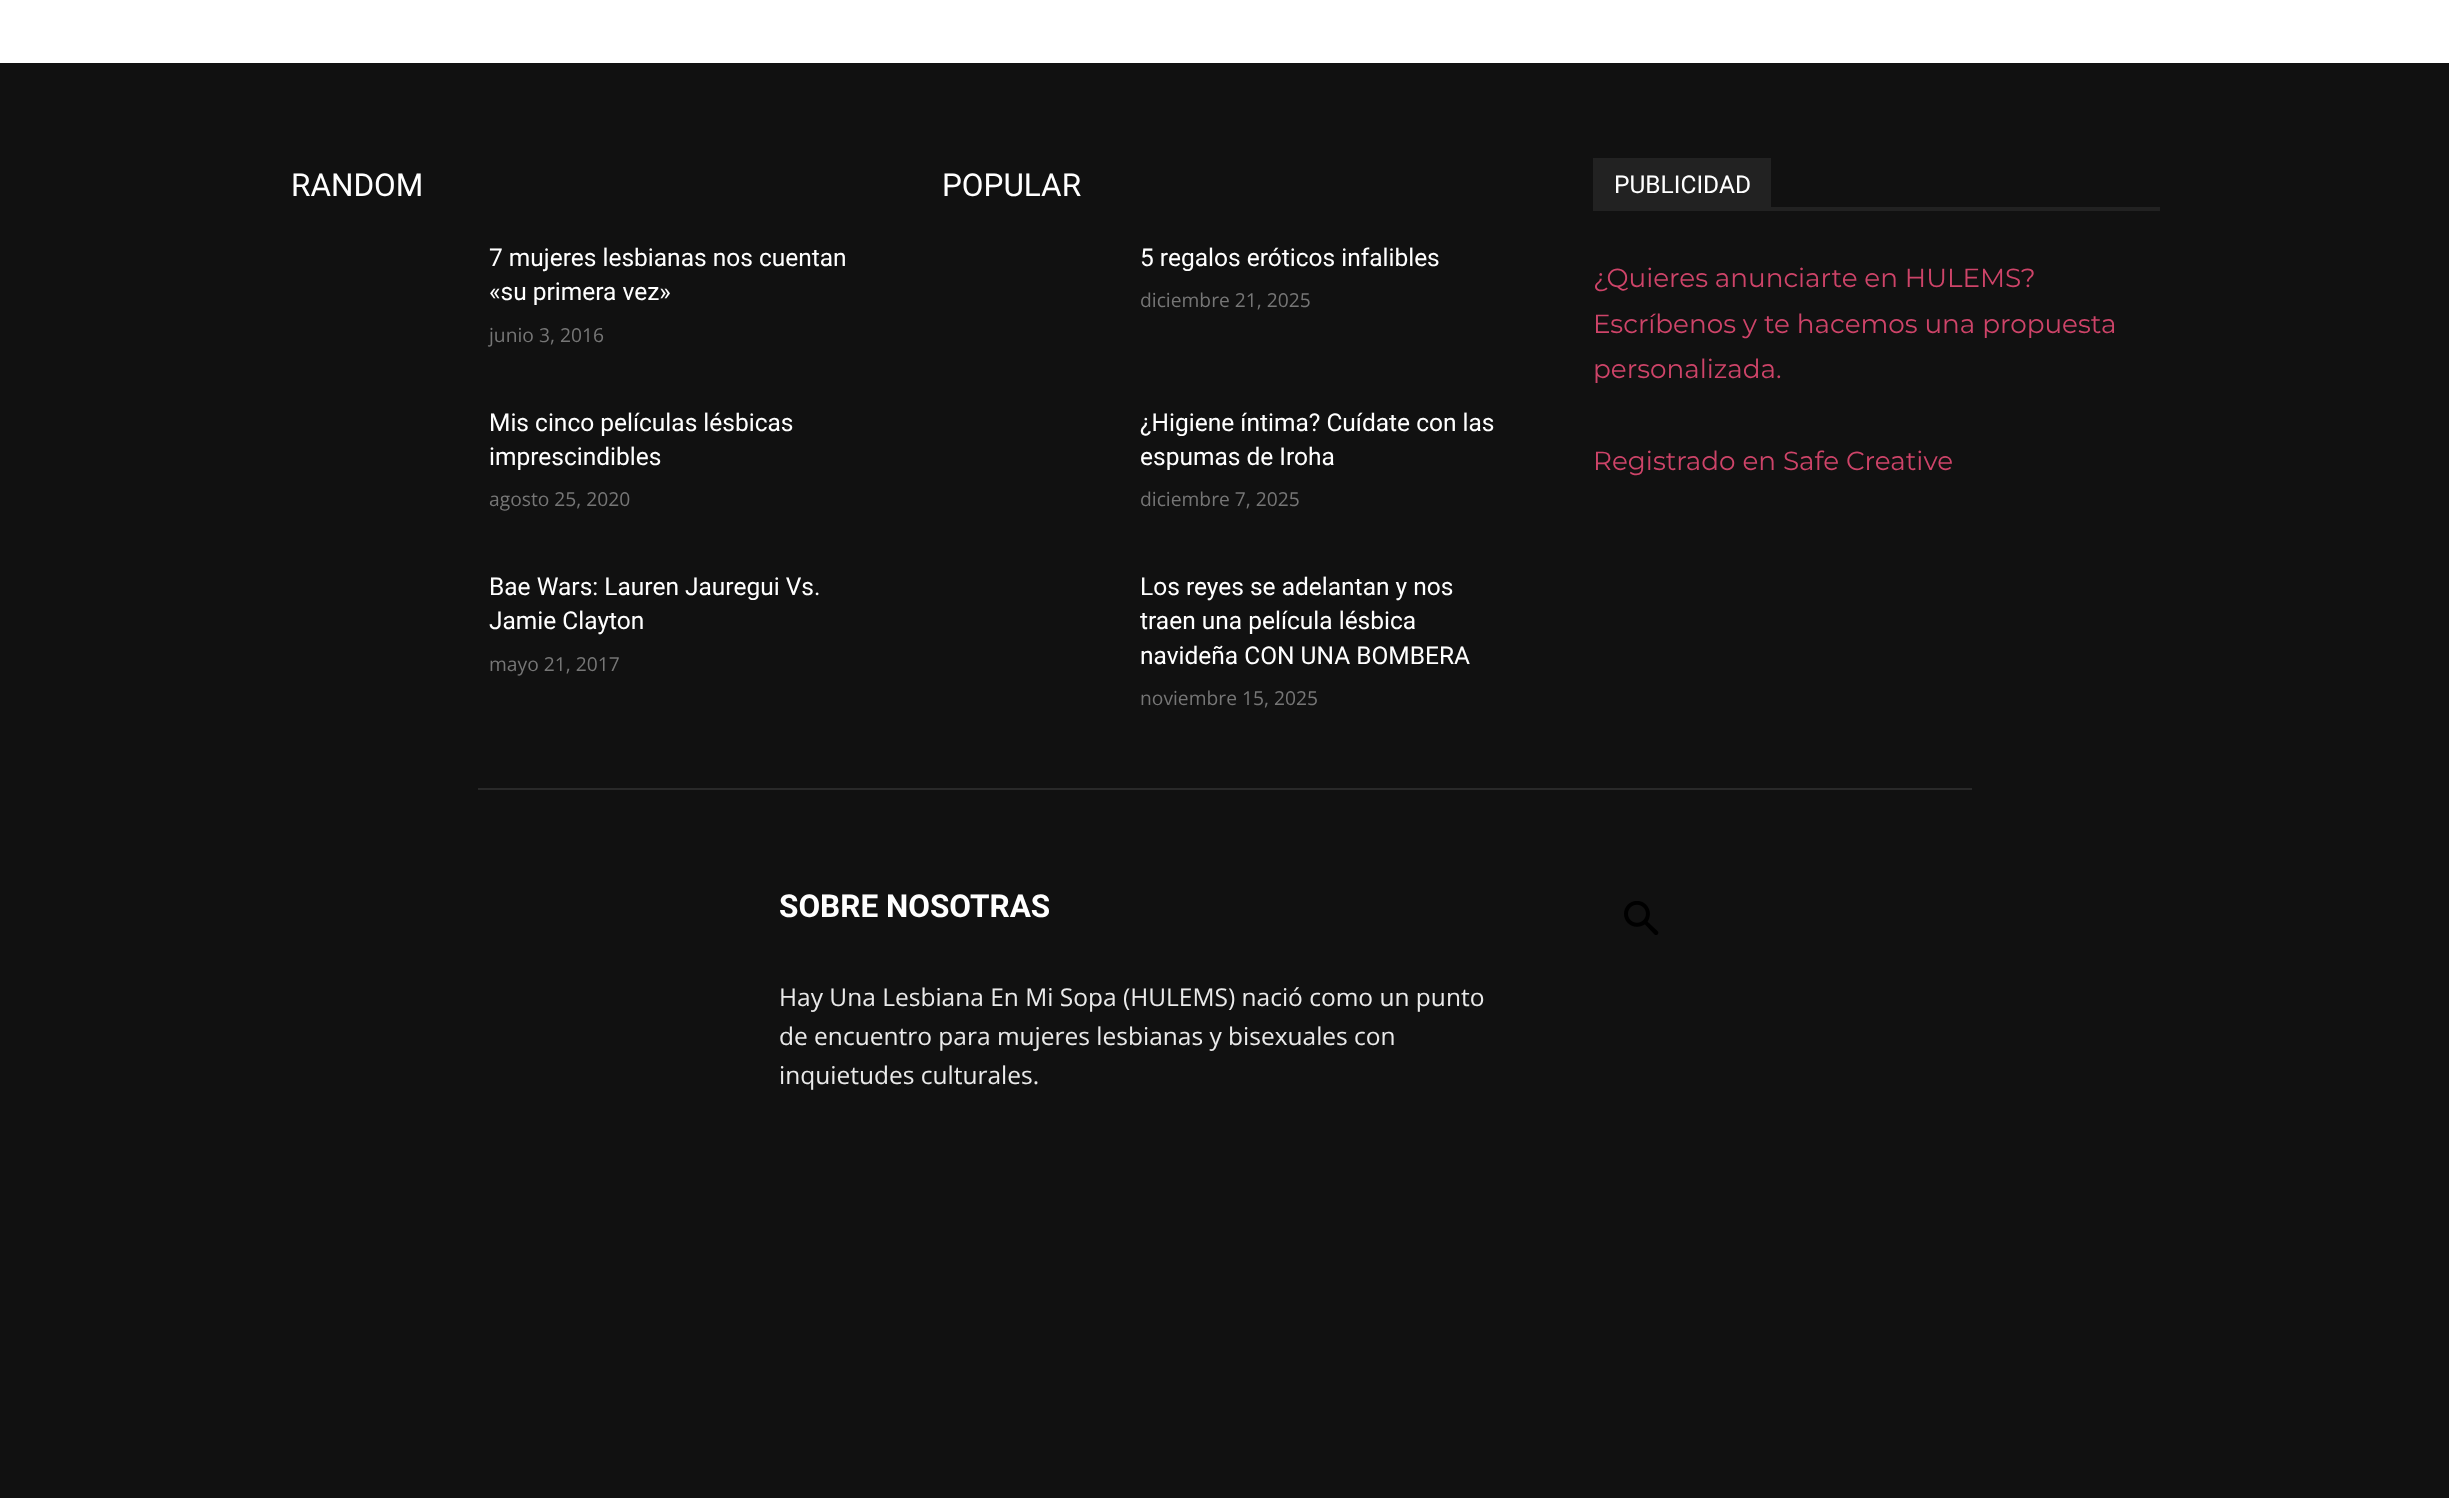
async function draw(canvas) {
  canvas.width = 2449;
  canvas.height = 1498;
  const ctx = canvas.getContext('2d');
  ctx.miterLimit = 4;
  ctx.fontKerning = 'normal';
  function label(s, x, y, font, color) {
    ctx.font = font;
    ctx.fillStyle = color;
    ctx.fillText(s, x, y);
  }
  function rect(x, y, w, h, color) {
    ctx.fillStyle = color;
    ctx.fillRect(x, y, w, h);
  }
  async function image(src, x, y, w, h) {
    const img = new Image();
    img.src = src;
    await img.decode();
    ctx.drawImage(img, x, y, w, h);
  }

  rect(0, 0, 2449, 1498, '#fff');
  rect(0, 63, 2449, 1435, '#111');
  label('RANDOM', 291, 196, '31.5px Roboto', '#fff');
  label('7 mujeres lesbianas nos cuentan', 489, 266, '24.5px Roboto', '#fff');
  label('«su primera vez»', 489, 300, '24.5px Roboto', '#fff');
  label('junio 3, 2016', 489, 342, '19.25px Open Sans', '#767676');
  label('Mis cinco películas lésbicas', 489, 431, '24.5px Roboto', '#fff');
  label('imprescindibles', 489, 465, '24.5px Roboto', '#fff');
  label('agosto 25, 2020', 489, 506, '19.25px Open Sans', '#767676');
  label('Bae Wars: Lauren Jauregui Vs.', 489, 595, '24.5px Roboto', '#fff');
  label('Jamie Clayton', 489, 629, '24.5px Roboto', '#fff');
  label('mayo 21, 2017', 489, 671, '19.25px Open Sans', '#767676');
  label('POPULAR', 942, 196, '31.5px Roboto', '#fff');
  label('5 regalos eróticos infalibles', 1140, 266, '24.5px Roboto', '#fff');
  label('diciembre 21, 2025', 1140, 307, '19.25px Open Sans', '#767676');
  label('¿Higiene íntima? Cuídate con las', 1140, 431, '24.5px Roboto', '#fff');
  label('espumas de Iroha', 1140, 465, '24.5px Roboto', '#fff');
  label('diciembre 7, 2025', 1140, 506, '19.25px Open Sans', '#767676');
  label('Los reyes se adelantan y nos', 1140, 595, '24.5px Roboto', '#fff');
  label('traen una película lésbica', 1140, 629, '24.5px Roboto', '#fff');
  label('navideña CON UNA BOMBERA', 1140, 664, '24.5px Roboto', '#fff');
  label('noviembre 15, 2025', 1140, 705, '19.25px Open Sans', '#767676');
  rect(1593, 207, 567, 4, '#222');
  rect(1593, 158, 178, 49, '#222');
  label('PUBLICIDAD', 1614, 193, '24.5px Roboto', '#fff');
  label('¿Quieres anunciarte en HULEMS?', 1593, 287, '100 26.25px Montserrat', '#ce4469');
  label('Escríbenos y te hacemos una propuesta', 1593, 333, '100 26.25px Montserrat', '#ce4469');
  label('personalizada.', 1593, 378, '100 26.25px Montserrat', '#ce4469');
  label('Registrado en Safe Creative', 1593, 470, '100 26.25px Montserrat', '#ce4469');
  rect(478, 788, 1494, 2, '#292929');
  label('SOBRE NOSOTRAS', 779, 917, 'bold 31.5px Roboto', '#fff');
  label('Hay Una Lesbiana En Mi Sopa (HULEMS) nació como un punto', 779, 1006, '24.5px Open Sans', '#eaeaea');
  label('de encuentro para mujeres lesbianas y bisexuales con', 779, 1045, '24.5px Open Sans', '#eaeaea');
  label('inquietudes culturales.', 779, 1084, '24.5px Open Sans', '#eaeaea');
  await image('assets/img1.png', 1624, 901, 35, 34);
}

draw(document.querySelector('canvas'));
